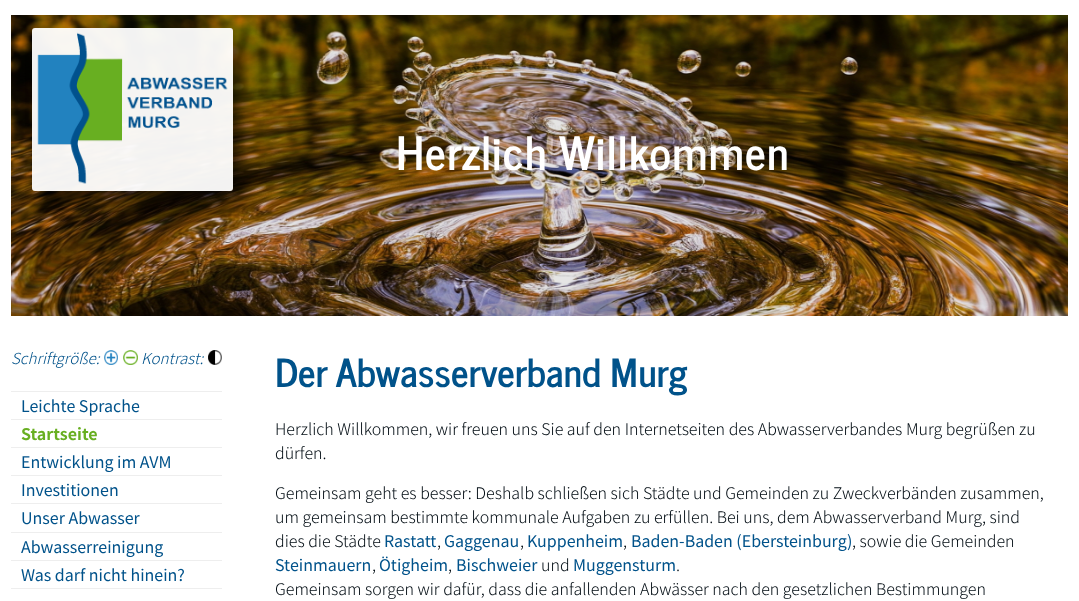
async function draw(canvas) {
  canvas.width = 1079;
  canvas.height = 601;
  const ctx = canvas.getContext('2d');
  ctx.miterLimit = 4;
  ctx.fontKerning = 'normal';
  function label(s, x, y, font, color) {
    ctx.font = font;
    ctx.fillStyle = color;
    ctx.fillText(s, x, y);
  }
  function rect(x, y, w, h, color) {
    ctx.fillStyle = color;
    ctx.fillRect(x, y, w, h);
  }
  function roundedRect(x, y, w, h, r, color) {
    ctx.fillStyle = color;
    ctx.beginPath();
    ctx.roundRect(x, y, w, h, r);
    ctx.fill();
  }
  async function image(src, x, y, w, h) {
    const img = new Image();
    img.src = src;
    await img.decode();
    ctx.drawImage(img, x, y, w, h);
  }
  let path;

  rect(0, 0, 1079, 601, '#fff');
  await image('assets/img1.png', 11, 15, 1057, 301);
  ctx.save();
  path = new Path2D('M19 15H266V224H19ZM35 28H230C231.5 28 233 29.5 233 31V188C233 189.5 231.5 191 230 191H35C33.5 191 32 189.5 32 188V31C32 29.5 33.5 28 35 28Z');
  ctx.clip(path, 'evenodd');
  ctx.fillStyle = '#00000096';
  ctx.filter = 'blur(7.5px)';
  ctx.beginPath();
  ctx.roundRect(43, 39, 199, 161, 2);
  ctx.fill();
  ctx.filter = 'none';
  ctx.restore();
  roundedRect(32, 28, 201, 163, 3, '#fffffff2');
  await image('assets/img2.png', 37, 32, 191, 152);
  ctx.letterSpacing = '1px';
  label('Herzlich', 396, 170, 'bold 45.5px News Cycle', '#fff');
  label('Willkommen', 559, 170, 'bold 45.5px News Cycle', '#fff');
  ctx.letterSpacing = '0px';
  label('Schriftgröße:', 11, 364, 'italic 300 15.25px Noto Sans JP', '#00528a');
  await image('assets/img3.png', 104, 350, 14, 15);
  await image('assets/img4.png', 123, 350, 15, 15);
  label('Kontrast:', 141, 364, 'italic 300 15.25px Noto Sans JP', '#00528a');
  await image('assets/img5.png', 208, 350, 14, 15);
  rect(11, 391, 211, 1, '#eee');
  label('Leichte Sprache', 21, 412, '16px Noto Sans JP', '#00528a');
  rect(11, 419, 211, 1, '#eee');
  label('Startseite', 21, 440, 'bold 16px Noto Sans JP', '#68af21');
  rect(11, 447, 211, 1, '#eee');
  label('Entwicklung im AVM', 21, 468, '16px Noto Sans JP', '#00528a');
  rect(11, 475, 211, 1, '#eee');
  label('Investitionen', 21, 496, '16px Noto Sans JP', '#00528a');
  rect(11, 503, 211, 1, '#eee');
  label('Unser Abwasser', 21, 524, '16px Noto Sans JP', '#00528a');
  rect(11, 532, 211, 1, '#eee');
  label('Abwasserreinigung', 21, 553, '16px Noto Sans JP', '#00528a');
  rect(11, 560, 211, 1, '#eee');
  label('Was darf nicht hinein?', 21, 581, '16px Noto Sans JP', '#00528a');
  rect(11, 588, 211, 1, '#eee');
  label('Der Abwasserverband Murg', 275, 387, 'bold 38.4px News Cycle', '#00528a');
  label('Herzlich Willkommen, wir freuen uns Sie auf den Internetseiten des Abwasserverbandes Murg begrüßen zu', 275, 435, '300 16px Noto Sans JP', '#000b12');
  label('dürfen.', 275, 459, '300 16px Noto Sans JP', '#000b12');
  label('Gemeinsam geht es besser: Deshalb schließen sich Städte und Gemeinden zu Zweckverbänden zusammen,', 275, 499, '300 16px Noto Sans JP', '#000b12');
  label('um gemeinsam bestimmte kommunale Aufgaben zu erfüllen. Bei uns, dem Abwasserverband Murg, sind', 275, 523, '300 16px Noto Sans JP', '#000b12');
  label('dies die Städte', 275, 547, '300 16px Noto Sans JP', '#000b12');
  label('Rastatt', 384, 547, '16px Noto Sans JP', '#00528a');
  label(',', 437, 547, '300 16px Noto Sans JP', '#000b12');
  label('Gaggenau', 444, 547, '16px Noto Sans JP', '#00528a');
  label(',', 520, 547, '300 16px Noto Sans JP', '#000b12');
  label('Kuppenheim', 527, 547, '16px Noto Sans JP', '#00528a');
  label(',', 623, 547, '300 16px Noto Sans JP', '#000b12');
  label('Baden-Baden (Ebersteinburg)', 631, 547, '16px Noto Sans JP', '#00528a');
  label(', sowie die Gemeinden', 852, 547, '300 16px Noto Sans JP', '#000b12');
  label('Steinmauern', 275, 571, '16px Noto Sans JP', '#00528a');
  label(',', 372, 571, '300 16px Noto Sans JP', '#000b12');
  label('Ötigheim', 379, 571, '16px Noto Sans JP', '#00528a');
  label(',', 448, 571, '300 16px Noto Sans JP', '#000b12');
  label('Bischweier', 456, 571, '16px Noto Sans JP', '#00528a');
  label('und', 541, 571, '300 16px Noto Sans JP', '#000b12');
  label('Muggensturm', 573, 571, '16px Noto Sans JP', '#00528a');
  label('.', 676, 571, '300 16px Noto Sans JP', '#000b12');
  label('Gemeinsam sorgen wir dafür, dass die anfallenden Abwässer nach den gesetzlichen Bestimmungen', 275, 595, '300 16px Noto Sans JP', '#000b12');
}

draw(document.querySelector('canvas'));
